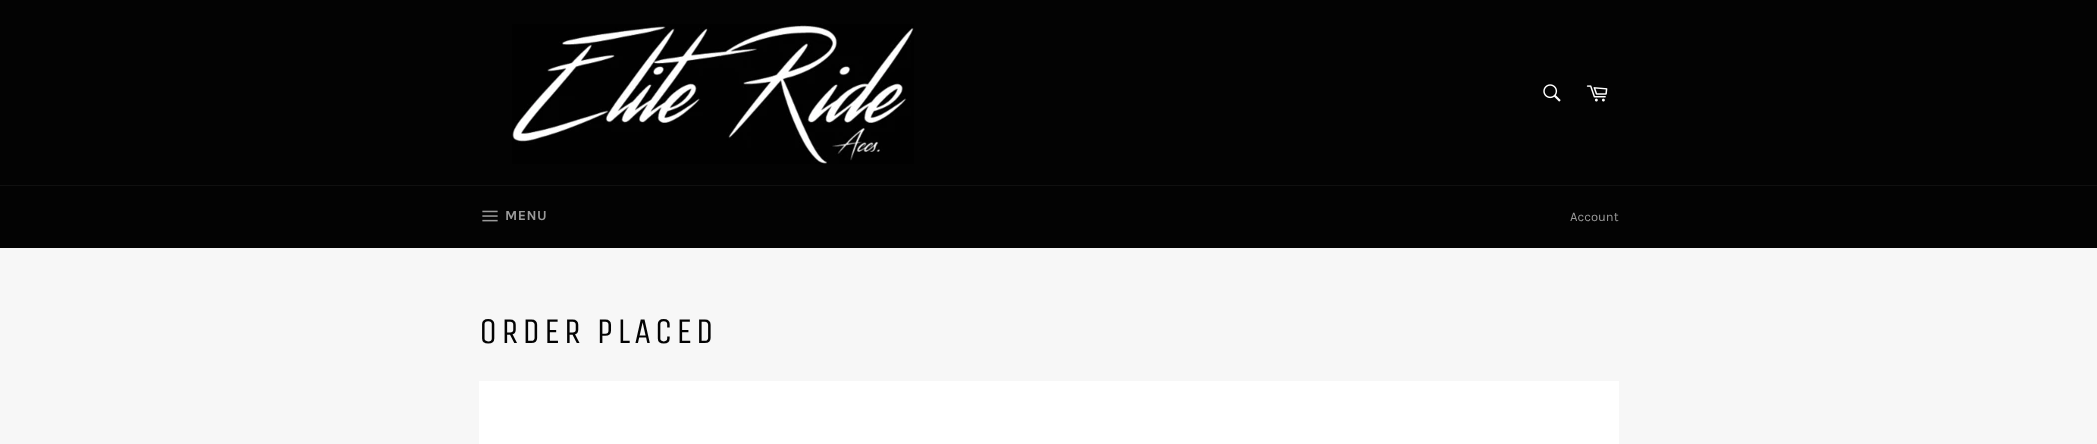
async function draw(canvas) {
  canvas.width = 2097;
  canvas.height = 444;
  const ctx = canvas.getContext('2d');
  ctx.miterLimit = 4;
  ctx.fontKerning = 'normal';
  function label(s, x, y, font, color) {
    ctx.font = font;
    ctx.fillStyle = color;
    ctx.fillText(s, x, y);
  }
  function rect(x, y, w, h, color) {
    ctx.fillStyle = color;
    ctx.fillRect(x, y, w, h);
  }
  async function image(src, x, y, w, h) {
    const img = new Image();
    img.src = src;
    await img.decode();
    ctx.drawImage(img, x, y, w, h);
  }

  rect(0, 0, 2097, 444, '#f7f7f7');
  rect(0, 0, 2097, 185, '#030303');
  await image('assets/img1.png', 512, 24, 402, 140);
  await image('assets/img2.png', 1543, 84, 18, 18);
  await image('assets/img3.png', 1586, 85, 22, 17);
  rect(0, 186, 2097, 62, '#030303');
  rect(0, 185, 2097, 1, '#101010');
  await image('assets/img4.png', 482, 210, 16, 12);
  ctx.letterSpacing = '0.5px';
  label('MENU', 505, 220, 'bold 14px Karla', '#9a9a9a');
  ctx.letterSpacing = '0px';
  label('Account', 1570, 221, '13px Karla', '#9a9a9a');
  ctx.letterSpacing = '3.6px';
  label('ORDER PLACED', 479, 343, '36px Unica One', '#030303');
  rect(479, 381, 1140, 63, '#fff');
}

draw(document.querySelector('canvas'));
